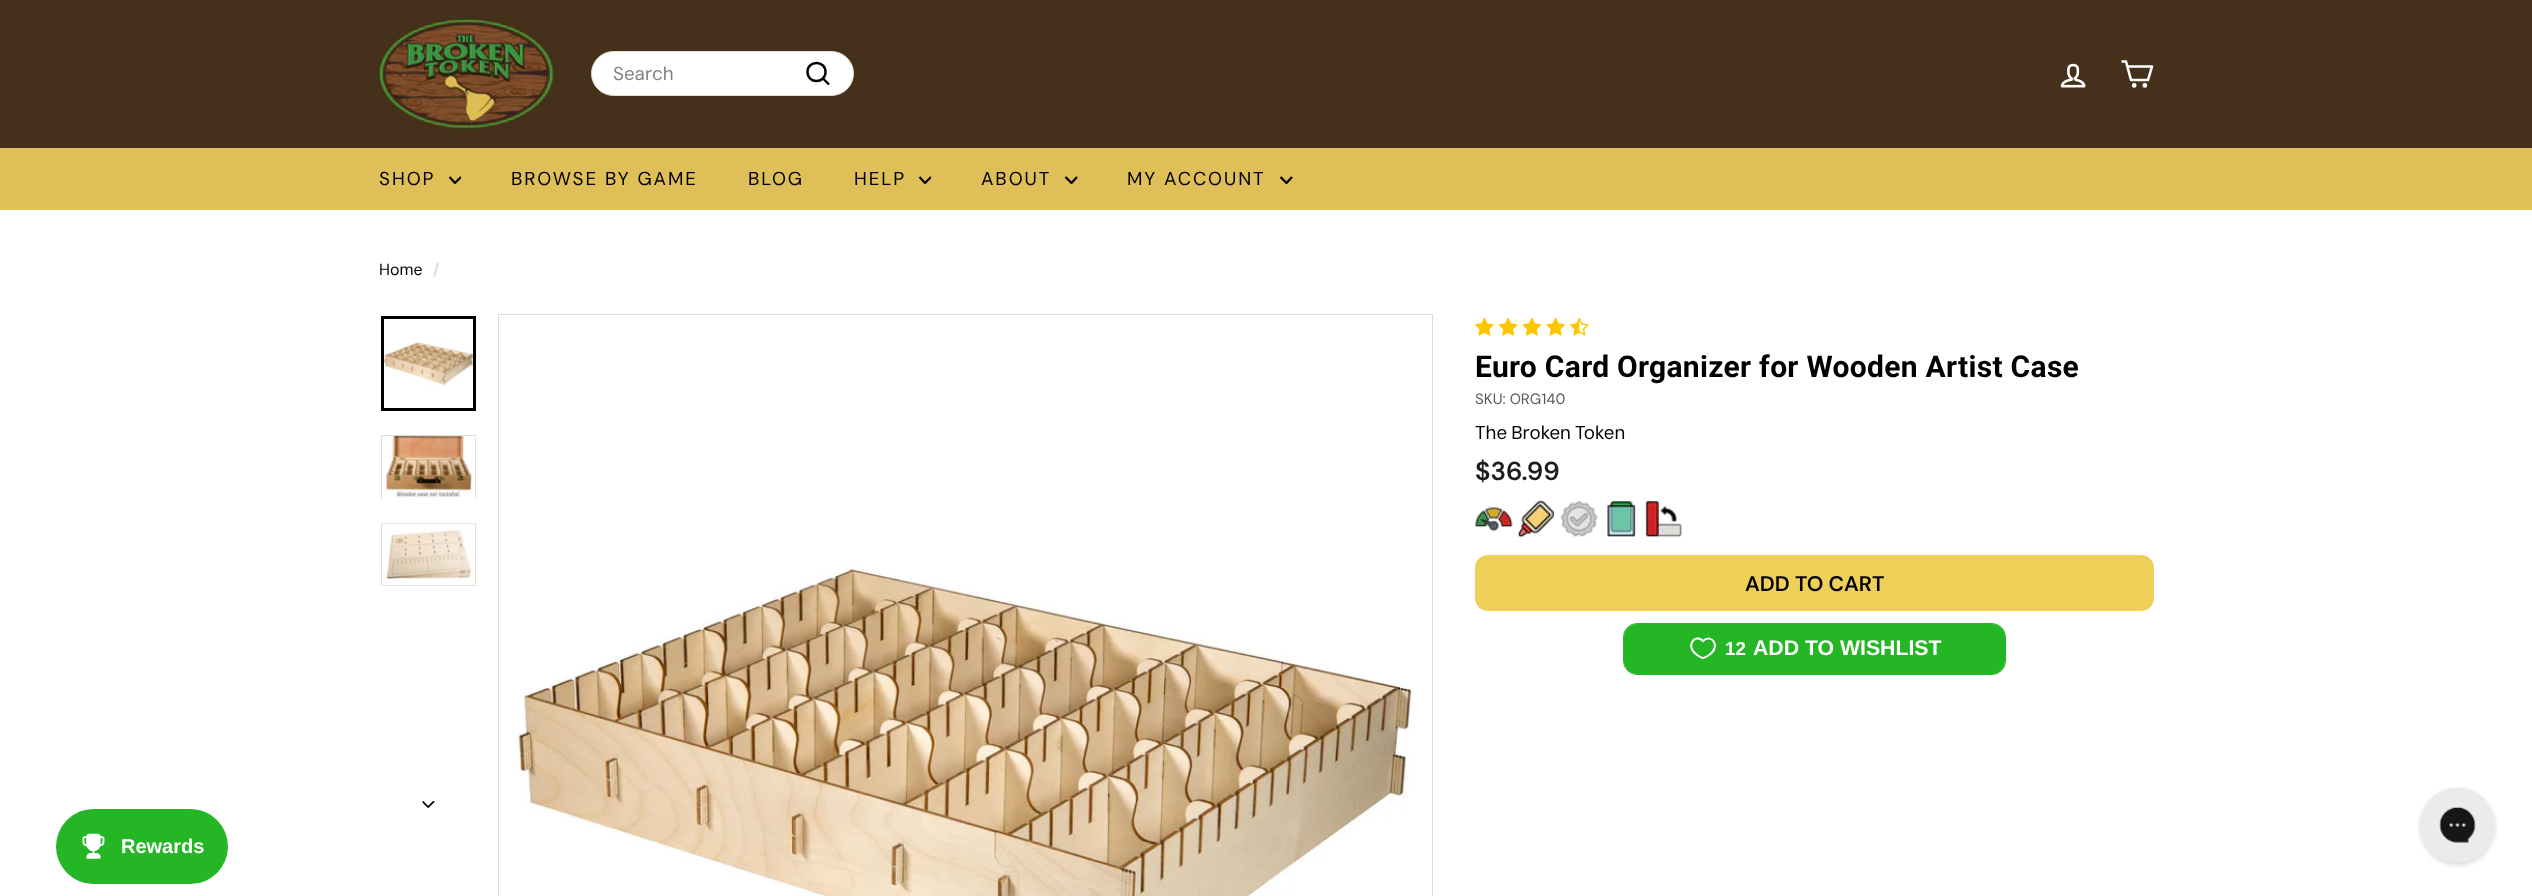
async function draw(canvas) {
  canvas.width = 2532;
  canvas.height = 896;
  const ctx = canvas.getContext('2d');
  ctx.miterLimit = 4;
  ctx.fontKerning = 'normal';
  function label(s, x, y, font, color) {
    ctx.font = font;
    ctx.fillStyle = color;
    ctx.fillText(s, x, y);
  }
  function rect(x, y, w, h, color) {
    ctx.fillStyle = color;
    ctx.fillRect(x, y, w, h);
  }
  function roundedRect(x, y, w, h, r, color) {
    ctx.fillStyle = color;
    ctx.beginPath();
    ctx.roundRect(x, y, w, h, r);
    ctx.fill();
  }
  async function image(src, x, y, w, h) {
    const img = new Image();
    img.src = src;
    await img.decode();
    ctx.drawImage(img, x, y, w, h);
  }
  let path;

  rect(0, 0, 2532, 896, '#fff');
  rect(0, 0, 2532, 148, '#45301b');
  await image('assets/img1.png', 378, 18, 176, 111);
  ctx.fillStyle = '#fff';
  ctx.beginPath();
  ctx.roundRect(591.5, 51.5, 262, 44, 22);
  ctx.fill();
  ctx.strokeStyle = '#e4dccc';
  ctx.stroke();
  label('Search', 613, 80, '18.75px DM Sans', '#808080');
  path = new Path2D('M825.5 72C825.5 84 807.5 84 807.5 72C807.5 60 825.5 60 825.5 72M829 84.5L823 78.5');
  ctx.strokeStyle = '#000';
  ctx.lineWidth = 2.4;
  ctx.lineJoin = 'round';
  ctx.stroke(path);
  await image('assets/img2.png', 2060, 63, 26, 25);
  path = new Path2D('M2127.5 66.5H2152L2148 80H2131L2126 61.5H2121.5');
  ctx.strokeStyle = '#fff';
  ctx.lineWidth = 2.6;
  ctx.stroke(path);
  ctx.beginPath();
  ctx.arc(2134.2, 85.4, 1.1, 0, 2 * Math.PI);
  ctx.stroke();
  ctx.beginPath();
  ctx.arc(2144.8, 85.4, 1.1, 0, 2 * Math.PI);
  ctx.stroke();
  rect(0, 149, 2532, 61, '#debf58');
  rect(0, 148, 2532, 1, '#e1c569');
  ctx.letterSpacing = '1.9px';
  label('SHOP', 379, 185, '18.75px DM Sans', '#000');
  ctx.save();
  ctx.beginPath();
  ctx.rect(449, 174, 12, 12);
  ctx.clip();
  path = new Path2D('M449.5 177L455 183L461 177');
  ctx.strokeStyle = '#000';
  ctx.lineWidth = 2.2;
  ctx.stroke(path);
  ctx.restore();
  label('BROWSE BY GAME', 511, 185, '18.75px DM Sans', '#000');
  label('BLOG', 748, 185, '18.75px DM Sans', '#000');
  label('HELP', 854, 185, '18.75px DM Sans', '#000');
  ctx.save();
  ctx.beginPath();
  ctx.rect(919, 174, 12, 12);
  ctx.clip();
  path = new Path2D('M919.5 177L925 183L931 177');
  ctx.strokeStyle = '#000';
  ctx.lineWidth = 2.2;
  ctx.stroke(path);
  ctx.restore();
  label('ABOUT', 981, 185, '18.75px DM Sans', '#000');
  path = new Path2D('M1065.5 177L1071.5 183L1077 177');
  ctx.strokeStyle = '#000';
  ctx.lineWidth = 2.2;
  ctx.stroke(path);
  label('MY ACCOUNT', 1127, 185, '18.75px DM Sans', '#000');
  path = new Path2D('M1280.5 177L1286.5 183L1292 177');
  ctx.stroke(path);
  ctx.letterSpacing = '0px';
  label('Home', 379, 275, '16px DM Sans', '#000');
  label('/', 433, 275, '16px DM Sans', '#ccc');
  await image('assets/img3.png', 384, 319, 89, 89);
  ctx.lineWidth = 3;
  ctx.lineJoin = 'miter';
  ctx.strokeRect(382.5, 317.5, 92, 92);
  ctx.save();
  ctx.beginPath();
  ctx.rect(381, 435, 95, 64);
  ctx.clip();
  ctx.strokeStyle = '#e4dccc';
  ctx.lineWidth = 1;
  ctx.strokeRect(381.5, 435.5, 94, 64);
  ctx.restore();
  await image('assets/img4.png', 386, 436, 90, 63);
  ctx.strokeStyle = '#e4dccc';
  ctx.lineWidth = 1;
  ctx.strokeRect(381.5, 523.5, 94, 62);
  await image('assets/img5.png', 382, 523, 94, 63);
  await image('assets/img6.png', 422, 801, 13, 7);
  ctx.strokeRect(498.5, 314.5, 934, 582);
  await image('assets/img7.png', 515, 564, 897, 332);
  await image('assets/img8.png', 1475, 317, 19, 19);
  await image('assets/img9.png', 1498, 317, 20, 19);
  await image('assets/img10.png', 1522, 317, 20, 19);
  await image('assets/img11.png', 1546, 317, 19, 19);
  await image('assets/img12.png', 1570, 317, 19, 19);
  ctx.letterSpacing = '0.3px';
  label('Euro Card Organizer for Wooden Artist Case', 1475, 377, 'bold 30px Roboto', '#000');
  ctx.letterSpacing = '0px';
  label('SKU: ORG140', 1475, 404, '15px DM Sans', '#595959');
  ctx.wordSpacing = '-1px';
  label('The Broken Token', 1475, 439, '18.75px DM Sans', '#000');
  ctx.wordSpacing = '0px';
  label('$36.99', 1475, 480, '600 26px DM Sans', '#1c1d1d');
  await image('assets/img13.png', 1475, 507, 38, 25);
  await image('assets/img14.png', 1517, 500, 38, 38);
  await image('assets/img15.png', 1560, 501, 38, 36);
  await image('assets/img16.png', 1607, 500, 29, 37);
  await image('assets/img17.png', 1645, 500, 38, 38);
  roundedRect(1475, 555, 679, 56, 13, '#eecf58');
  label('ADD TO CART', 1745, 591, '600 21.25px "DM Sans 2"', '#000');
  ctx.beginPath();
  ctx.roundRect(1623.5, 623.5, 382, 51, 13.5);
  ctx.strokeStyle = '#25b625';
  ctx.stroke();
  roundedRect(1624, 624, 381, 50, 13, '#25b625');
  path = new Path2D('M1702.5 640.5L1703 641C1711.5 633 1721.5 646.5 1709 655C1707.5 656 1705 658 1703 658C1701 658 1698.5 656 1697 655C1684.5 646 1695 633.5 1702.5 640.5Z');
  ctx.strokeStyle = '#fff';
  ctx.lineWidth = 2;
  ctx.stroke(path);
  label('12', 1725, 655, 'bold 18.75px Liberation Sans', '#fff');
  label('ADD TO WISHLIST', 1753, 655, 'bold 21.25px Liberation Sans', '#fff');
  roundedRect(56, 809, 172, 75, 37.5, '#25b625');
  await image('assets/img18.png', 82, 833, 23, 26);
  label('Rewards', 121, 853, 'bold 20px Liberation Sans', '#fff');
  await image('assets/img19.png', 2417, 787, 81, 81);
}

draw(document.querySelector('canvas'));
